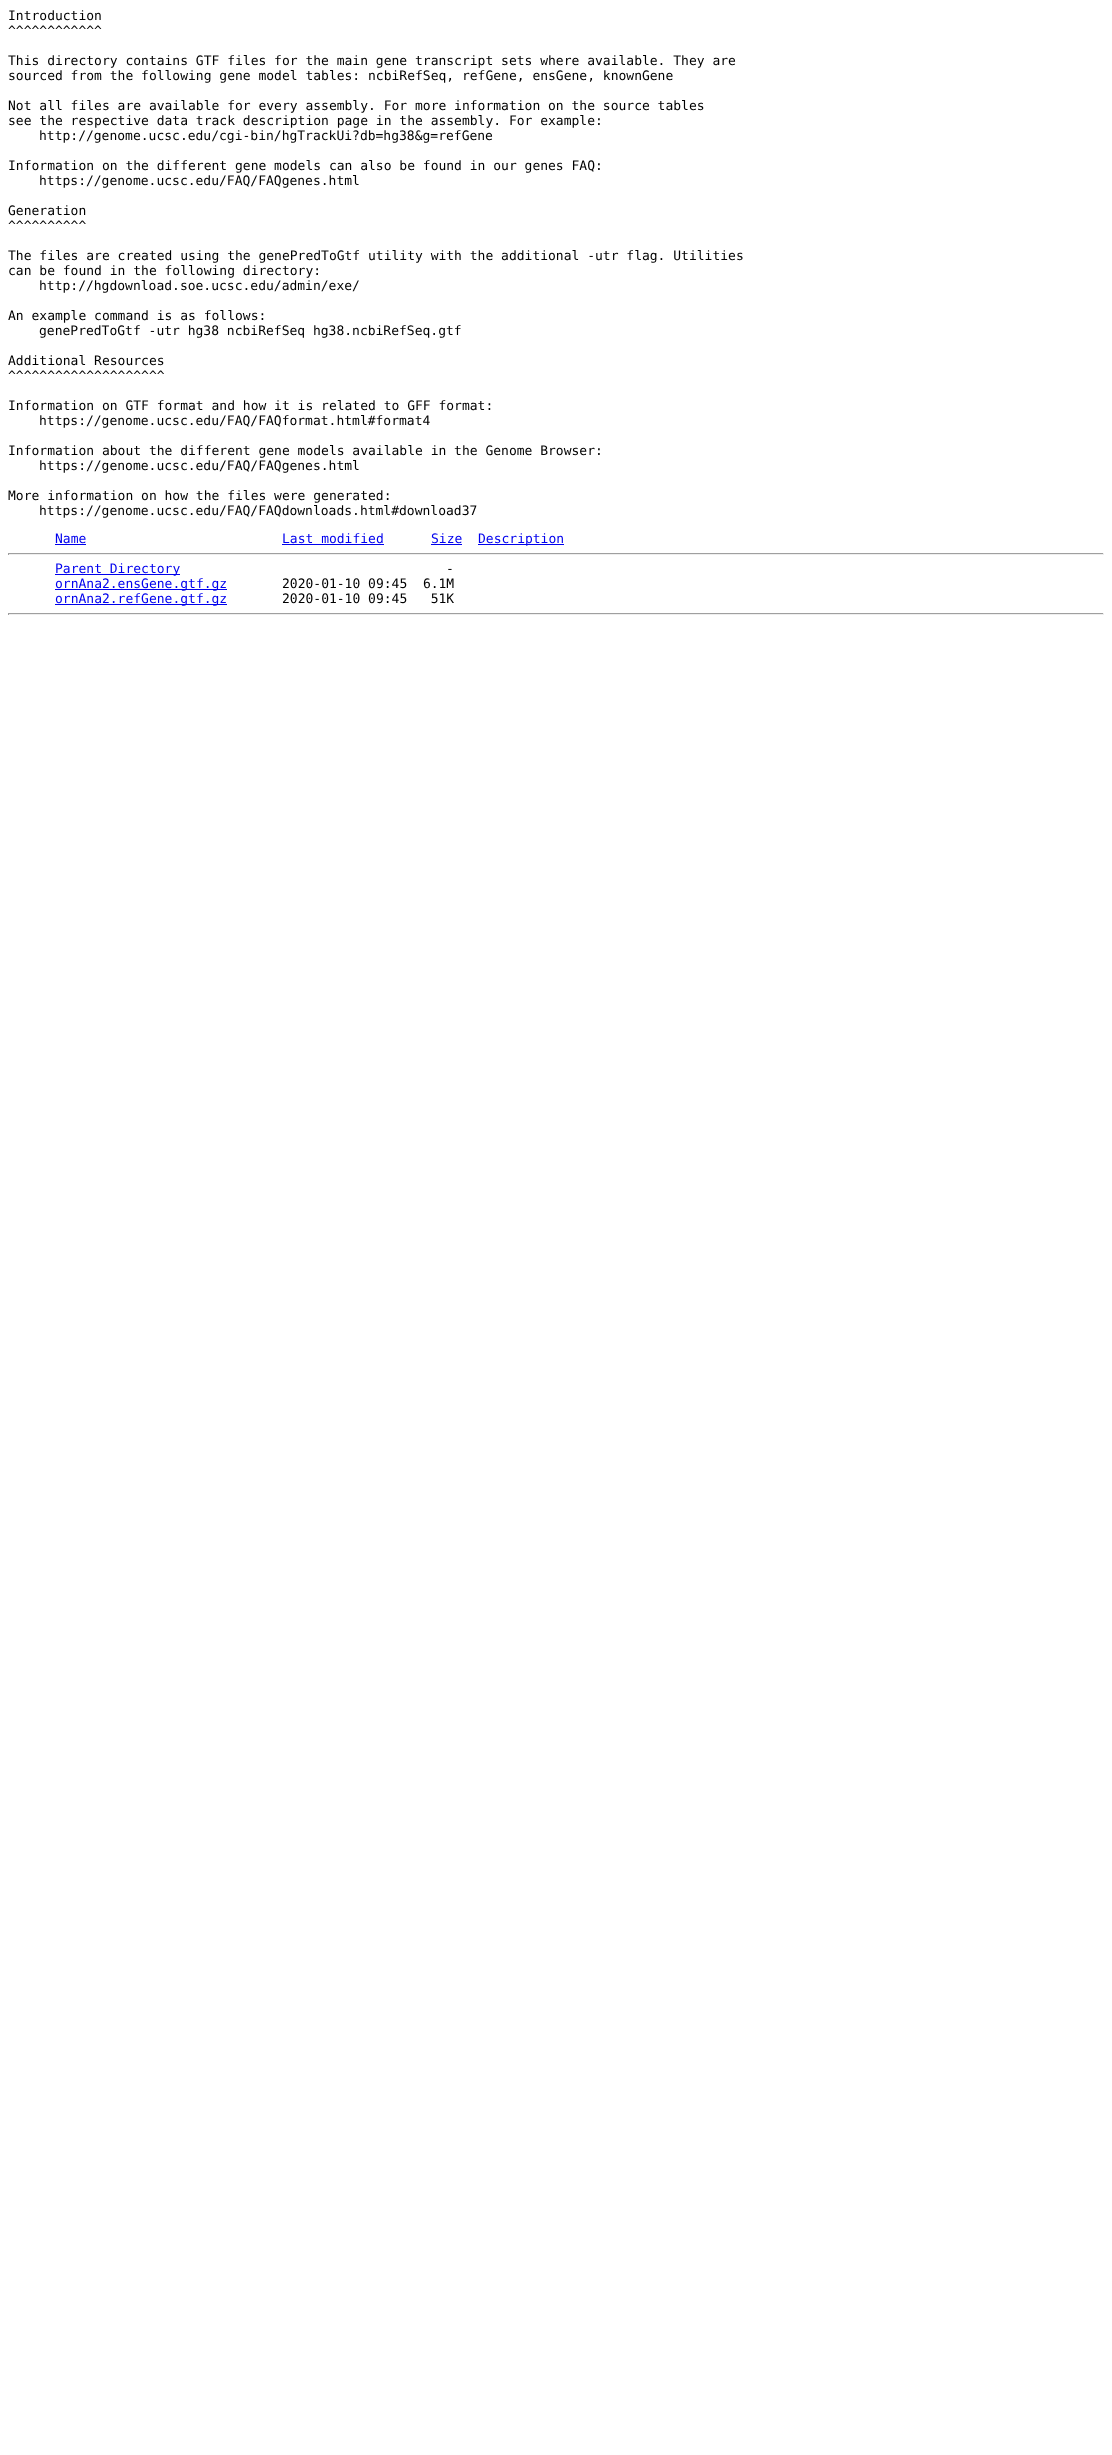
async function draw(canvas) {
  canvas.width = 1112;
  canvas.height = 2455;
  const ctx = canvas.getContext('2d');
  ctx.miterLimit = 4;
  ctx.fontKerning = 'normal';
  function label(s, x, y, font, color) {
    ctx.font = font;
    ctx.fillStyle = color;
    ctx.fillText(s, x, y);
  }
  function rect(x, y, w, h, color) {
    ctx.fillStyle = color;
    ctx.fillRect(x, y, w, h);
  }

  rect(0, 0, 1112, 2455, '#fff');
  label('Introduction', 8, 20, '13px DejaVu Sans Mono', '#000');
  label('^^^^^^^^^^^^', 8, 35, '13px DejaVu Sans Mono', '#000');
  label('This directory contains GTF files for the main gene transcript sets where available. They are', 8, 65, '13px DejaVu Sans Mono', '#000');
  label('sourced from the following gene model tables: ncbiRefSeq, refGene, ensGene, knownGene', 8, 80, '13px DejaVu Sans Mono', '#000');
  label('Not all files are available for every assembly. For more information on the source tables', 8, 110, '13px DejaVu Sans Mono', '#000');
  label('see the respective data track description page in the assembly. For example:', 8, 125, '13px DejaVu Sans Mono', '#000');
  label('http://genome.ucsc.edu/cgi-bin/hgTrackUi?db=hg38&g=refGene', 39, 140, '13px DejaVu Sans Mono', '#000');
  label('Information on the different gene models can also be found in our genes FAQ:', 8, 170, '13px DejaVu Sans Mono', '#000');
  label('https://genome.ucsc.edu/FAQ/FAQgenes.html', 39, 185, '13px DejaVu Sans Mono', '#000');
  label('Generation', 8, 215, '13px DejaVu Sans Mono', '#000');
  label('^^^^^^^^^^', 8, 230, '13px DejaVu Sans Mono', '#000');
  label('The files are created using the genePredToGtf utility with the additional -utr flag. Utilities', 8, 260, '13px DejaVu Sans Mono', '#000');
  label('can be found in the following directory:', 8, 275, '13px DejaVu Sans Mono', '#000');
  label('http://hgdownload.soe.ucsc.edu/admin/exe/', 39, 290, '13px DejaVu Sans Mono', '#000');
  label('An example command is as follows:', 8, 320, '13px DejaVu Sans Mono', '#000');
  label('genePredToGtf -utr hg38 ncbiRefSeq hg38.ncbiRefSeq.gtf', 39, 335, '13px DejaVu Sans Mono', '#000');
  label('Additional Resources', 8, 365, '13px DejaVu Sans Mono', '#000');
  label('^^^^^^^^^^^^^^^^^^^^', 8, 380, '13px DejaVu Sans Mono', '#000');
  label('Information on GTF format and how it is related to GFF format:', 8, 410, '13px DejaVu Sans Mono', '#000');
  label('https://genome.ucsc.edu/FAQ/FAQformat.html#format4', 39, 425, '13px DejaVu Sans Mono', '#000');
  label('Information about the different gene models available in the Genome Browser:', 8, 455, '13px DejaVu Sans Mono', '#000');
  label('https://genome.ucsc.edu/FAQ/FAQgenes.html', 39, 470, '13px DejaVu Sans Mono', '#000');
  label('More information on how the files were generated:', 8, 500, '13px DejaVu Sans Mono', '#000');
  label('https://genome.ucsc.edu/FAQ/FAQdownloads.html#download37', 39, 515, '13px DejaVu Sans Mono', '#000');
  label('Name', 55, 543, '13px DejaVu Sans Mono', '#00e');
  rect(55, 544, 31, 1, '#00e');
  label('Last modified', 282, 543, '13px DejaVu Sans Mono', '#00e');
  rect(282, 544, 102, 1, '#00e');
  label('Size', 431, 543, '13px DejaVu Sans Mono', '#00e');
  rect(431, 544, 31, 1, '#00e');
  rect(478, 544, 86, 1, '#00e');
  label('Description', 478, 543, '13px DejaVu Sans Mono', '#00e');
  rect(8, 553, 1096, 1, '#9f9f9f');
  rect(1103, 553, 1, 2, '#eee');
  rect(8, 554, 1096, 1, '#eee');
  rect(8, 553, 1, 2, '#9f9f9f');
  rect(55, 574, 125, 1, '#00e');
  label('Parent Directory', 55, 573, '13px DejaVu Sans Mono', '#00e');
  label('-', 446, 573, '13px DejaVu Sans Mono', '#000');
  rect(55, 589, 172, 1, '#00e');
  label('ornAna2.ensGene.gtf.gz', 55, 588, '13px DejaVu Sans Mono', '#00e');
  label('2020-01-10 09:45  6.1M', 282, 588, '13px DejaVu Sans Mono', '#000');
  rect(55, 604, 172, 1, '#00e');
  label('ornAna2.refGene.gtf.gz', 55, 603, '13px DejaVu Sans Mono', '#00e');
  label('2020-01-10 09:45   51K', 282, 603, '13px DejaVu Sans Mono', '#000');
  rect(8, 613, 1096, 1, '#9f9f9f');
  rect(1103, 613, 1, 2, '#eee');
  rect(8, 614, 1096, 1, '#eee');
  rect(8, 613, 1, 2, '#9f9f9f');
}

draw(document.querySelector('canvas'));
